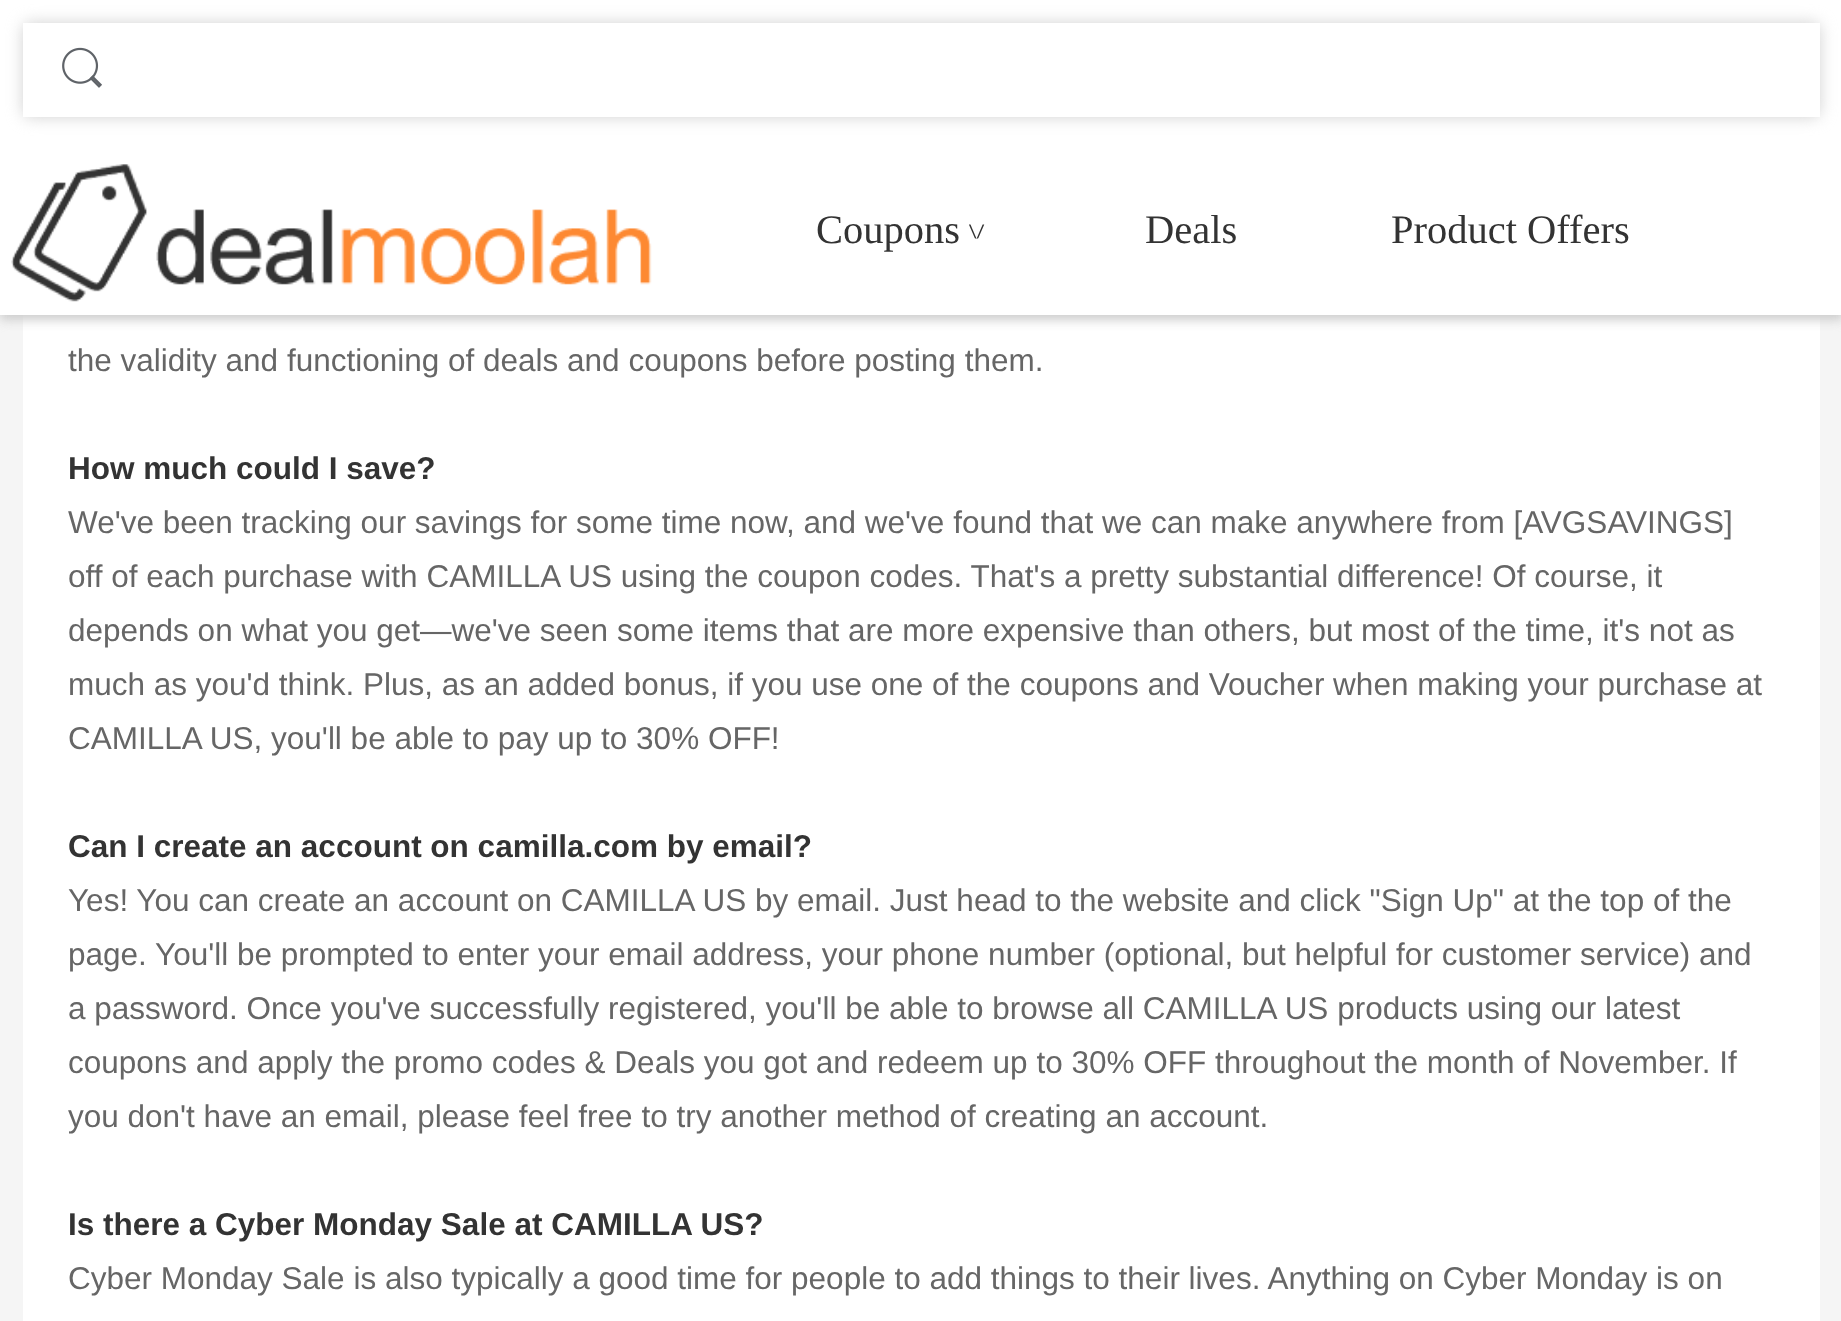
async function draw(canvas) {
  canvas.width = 1841;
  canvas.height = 1321;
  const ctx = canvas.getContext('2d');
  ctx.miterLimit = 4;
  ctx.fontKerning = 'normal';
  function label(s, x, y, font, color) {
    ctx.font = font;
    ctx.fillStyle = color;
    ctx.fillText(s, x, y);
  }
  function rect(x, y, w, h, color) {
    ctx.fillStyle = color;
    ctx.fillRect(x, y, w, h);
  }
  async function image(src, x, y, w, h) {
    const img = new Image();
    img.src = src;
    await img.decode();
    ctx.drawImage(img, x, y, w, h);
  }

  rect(0, 0, 1841, 1321, '#f5f5f5');
  rect(23, 315, 1797, 1006, '#fff');
  ctx.fillStyle = '#ccc';
  ctx.filter = 'blur(5.5px)';
  ctx.beginPath();
  ctx.rect(0, 5, 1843, 315);
  ctx.fill();
  ctx.filter = 'none';
  rect(0, 0, 1841, 315, '#fff');
  ctx.fillStyle = '#d1d1d1';
  ctx.filter = 'blur(8px)';
  ctx.beginPath();
  ctx.roundRect(23, 23, 1797, 94, 7);
  ctx.fill();
  ctx.filter = 'none';
  rect(23, 23, 1797, 94, '#fff');
  await image('assets/img1.png', 62, 47, 40, 41);
  await image('assets/img2.png', 11, 164, 641, 138);
  await image('assets/img3.png', 969, 224, 16, 15);
  label('Coupons', 816, 243, '40.5px Liberation Serif', '#333');
  label('Deals', 1145, 243, '40.5px Liberation Serif', '#333');
  label('Product Offers', 1391, 243, '40.5px Liberation Serif', '#333');
  label('the validity and functioning of deals and coupons before posting them.', 68, 371, '31.5px Liberation Sans', '#666');
  label('How much could I save?', 68, 479, 'bold 31.5px Liberation Sans', '#333');
  label('We\'ve been tracking our savings for some time now, and we\'ve found that we can make anywhere from [AVGSAVINGS]', 68, 533, '31.5px Liberation Sans', '#666');
  label('off of each purchase with CAMILLA US using the coupon codes. That\'s a pretty substantial difference! Of course, it', 68, 587, '31.5px Liberation Sans', '#666');
  label('depends on what you get—we\'ve seen some items that are more expensive than others, but most of the time, it\'s not as', 68, 641, '31.5px Liberation Sans', '#666');
  label('much as you\'d think. Plus, as an added bonus, if you use one of the coupons and Voucher when making your purchase at', 68, 695, '31.5px Liberation Sans', '#666');
  label('CAMILLA US, you\'ll be able to pay up to 30% OFF!', 68, 749, '31.5px Liberation Sans', '#666');
  label('Can I create an account on camilla.com by email?', 68, 857, 'bold 31.5px Liberation Sans', '#333');
  label('Yes! You can create an account on CAMILLA US by email. Just head to the website and click "Sign Up" at the top of the', 68, 911, '31.5px Liberation Sans', '#666');
  label('page. You\'ll be prompted to enter your email address, your phone number (optional, but helpful for customer service) and', 68, 965, '31.5px Liberation Sans', '#666');
  label('a password. Once you\'ve successfully registered, you\'ll be able to browse all CAMILLA US products using our latest', 68, 1019, '31.5px Liberation Sans', '#666');
  label('coupons and apply the promo codes & Deals you got and redeem up to 30% OFF throughout the month of November. If', 68, 1073, '31.5px Liberation Sans', '#666');
  label('you don\'t have an email, please feel free to try another method of creating an account.', 68, 1127, '31.5px Liberation Sans', '#666');
  label('Is there a Cyber Monday Sale at CAMILLA US?', 68, 1235, 'bold 31.5px Liberation Sans', '#333');
  label('Cyber Monday Sale is also typically a good time for people to add things to their lives. Anything on Cyber Monday is on', 68, 1289, '31.5px Liberation Sans', '#666');
}

draw(document.querySelector('canvas'));
